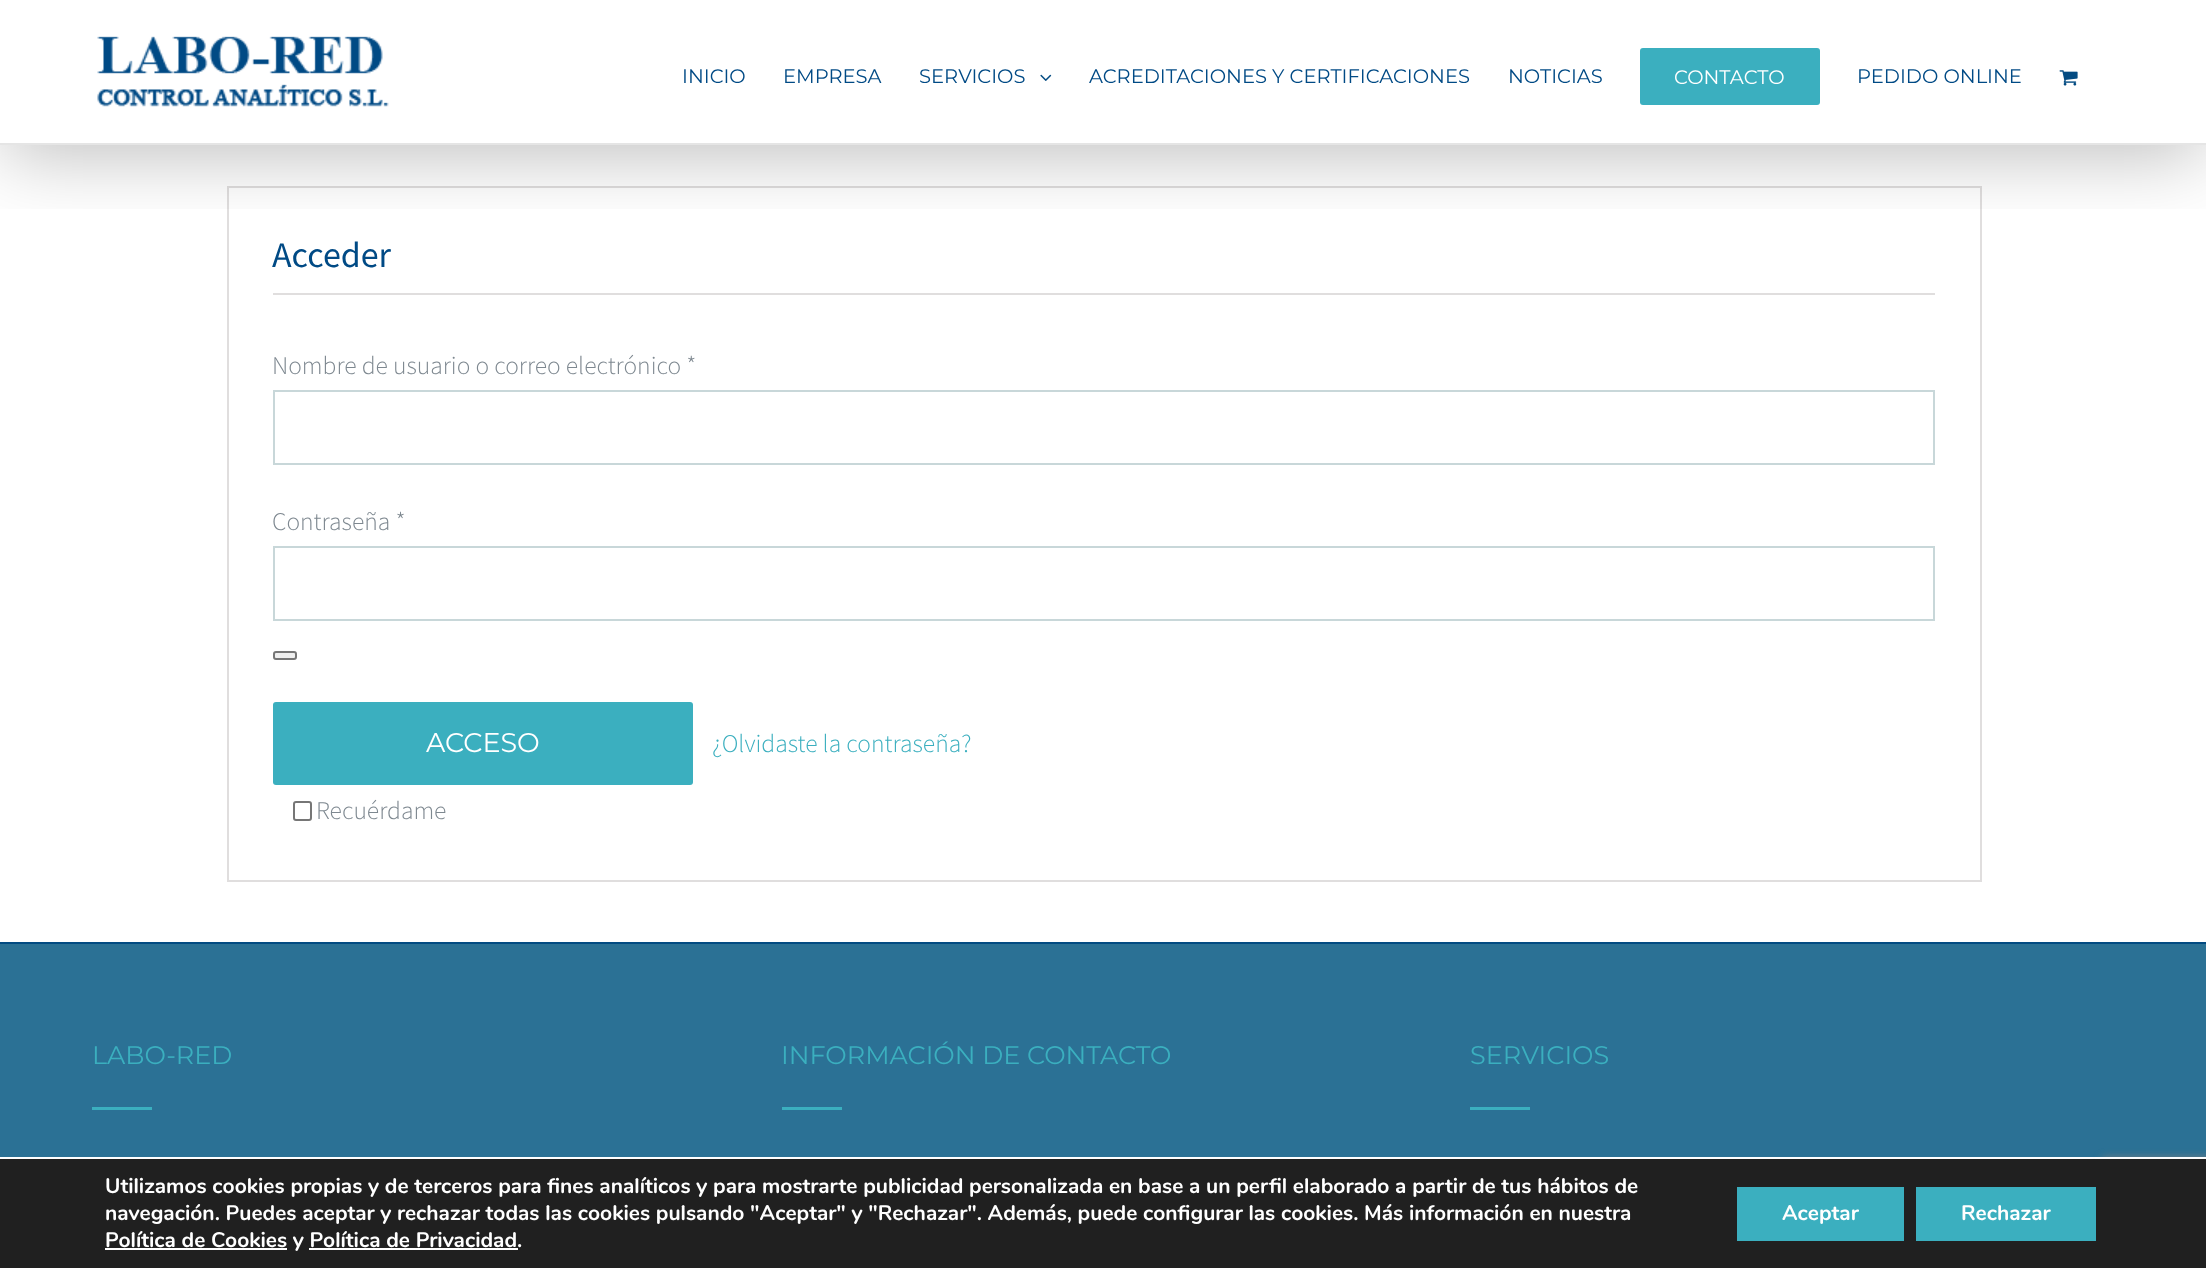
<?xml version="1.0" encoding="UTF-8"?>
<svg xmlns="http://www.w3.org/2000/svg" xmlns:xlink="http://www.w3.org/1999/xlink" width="2206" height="1268">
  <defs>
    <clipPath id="clip1"><rect x="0" y="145" width="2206" height="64" /></clipPath>
  </defs>
  <rect width="100%" height="100%" fill="#ffffff" />
  <rect x="228" y="187" width="1753" height="694" fill="none" stroke="#e0dede" stroke-width="2" />
  <g clip-path="url(#clip1)">
    <rect x="3" y="-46" width="2201" height="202" fill="#000000" fill-opacity="0.25" filter="blur(37.5px)" />
  </g>
  <rect y="143" width="2206" height="2" fill="#e5e5e5" />
  <image x="97" y="36" width="292" height="71" xlink:href="image1.png" />
  <image x="1040" y="74" width="12" height="7" xlink:href="image2.png" />
  <rect x="1640" y="48" width="180" height="57" rx="3" fill="#3bafbf" />
  <image x="2059" y="70" width="19" height="16" xlink:href="image3.png" />
  <rect x="273" y="293" width="1662" height="2" fill="#e0dede" />
  <rect x="274" y="391" width="1660" height="73" fill="none" stroke="#c8d7d9" stroke-width="2" />
  <rect x="274" y="547" width="1660" height="73" fill="none" stroke="#c8d7d9" stroke-width="2" />
  <rect x="274" y="652" width="22" height="7" rx="2" fill="#efefef" stroke="#767676" stroke-width="2" />
  <rect x="273" y="702" width="420" height="83" rx="3" fill="#3bafbf" />
  <rect x="294" y="802" width="17" height="18" rx="2" fill="none" stroke="#767676" stroke-width="2" />
  <rect y="944" width="2206" height="213" fill="#2b7195" />
  <rect y="942" width="2206" height="2" fill="#034b82" />
  <rect x="92" y="1107" width="60" height="3" fill="#3bafbf" />
  <rect x="782" y="1107" width="60" height="3" fill="#3bafbf" />
  <rect x="1470" y="1107" width="60" height="3" fill="#3bafbf" />
  <rect x="2102" y="1158" width="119" height="90" rx="3" fill="#808080" filter="blur(4px)" />
  <rect y="1159" width="2206" height="109" fill="#202020" />
  <rect x="2095" y="1157" width="111" height="2" fill="#ffffff" />
  <rect x="105" y="1248" width="182" height="2" fill="#ffffff" />
  <rect x="309" y="1248" width="209" height="2" fill="#ffffff" />
  <rect x="1737" y="1187" width="167" height="54" fill="#3bafbf" />
  <rect x="1916" y="1187" width="180" height="54" fill="#3bafbf" />
  <text x="682" y="83" style="font-family: Montserrat; font-size: 19.5px; font-weight: 100; fill: #004a85">INICIO</text>
  <text x="783" y="83" style="font-family: Montserrat; font-size: 19.5px; font-weight: 100; fill: #004a85">EMPRESA</text>
  <text x="919" y="83" style="font-family: Montserrat; font-size: 19.5px; font-weight: 100; fill: #004a85">SERVICIOS</text>
  <text x="1089" y="83" style="font-family: Montserrat; font-size: 19.5px; font-weight: 100; fill: #004a85">ACREDITACIONES Y CERTIFICACIONES</text>
  <text x="1508" y="83" style="font-family: Montserrat; font-size: 19.5px; font-weight: 100; fill: #004a85">NOTICIAS</text>
  <text x="1674" y="84" style="font-family: Montserrat; font-size: 19.5px; font-weight: 100; fill: #ffffff">CONTACTO</text>
  <text x="1857" y="83" style="font-family: Montserrat; font-size: 19.5px; font-weight: 100; fill: #004a85">PEDIDO ONLINE</text>
  <text x="272" y="267" style="font-family: Source Sans Pro; font-size: 36px; fill: #004a85">Acceder</text>
  <text x="272" y="374" style="font-family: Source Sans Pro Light; font-size: 25.5px; font-weight: 300; fill: #7e8890">Nombre de usuario o correo electrónico *</text>
  <text x="272" y="530" style="font-family: Source Sans Pro Light; font-size: 25.5px; font-weight: 300; fill: #7e8890">Contraseña *</text>
  <text x="426" y="752" style="font-family: Montserrat; font-size: 27px; font-weight: 100; fill: #ffffff">ACCESO</text>
  <text x="316" y="819" style="font-family: Source Sans Pro Light; font-size: 25.5px; font-weight: 300; fill: #7e8890">Recuérdame</text>
  <text x="712" y="752" style="font-family: Source Sans Pro Light; font-size: 25.5px; font-weight: 300; fill: #3bafbf">¿Olvidaste la contraseña?</text>
  <text x="92" y="1064" style="font-family: Montserrat; font-size: 25.5px; font-weight: 100; fill: #3bafbf">LABO-RED</text>
  <text x="781" y="1064" style="font-family: Montserrat; font-size: 25.5px; font-weight: 100; fill: #3bafbf">INFORMACIÓN DE CONTACTO</text>
  <text x="1470" y="1064" style="font-family: Montserrat; font-size: 25.5px; font-weight: 100; fill: #3bafbf">SERVICIOS</text>
  <text x="105" y="1193" style="font-family: Nunito; font-size: 21px; font-weight: bold; fill: #ffffff">Utilizamos cookies propias y de terceros para fines analíticos y para mostrarte publicidad personalizada en base a un perfil elaborado a partir de tus hábitos de</text>
  <text x="105" y="1220" style="font-family: Nunito; font-size: 21px; font-weight: bold; fill: #ffffff">navegación. Puedes aceptar y rechazar todas las cookies pulsando "Aceptar" y "Rechazar". Además, puede configurar las cookies. Más información en nuestra</text>
  <text x="105" y="1247" style="font-family: Nunito; font-size: 21px; font-weight: bold; fill: #ffffff">Política de Cookies y Política de Privacidad.</text>
  <text x="1782" y="1220" style="font-family: Nunito; font-size: 21px; font-weight: bold; fill: #ffffff">Aceptar</text>
  <text x="1961" y="1220" style="font-family: Nunito; font-size: 21px; font-weight: bold; fill: #ffffff">Rechazar</text>
</svg>
